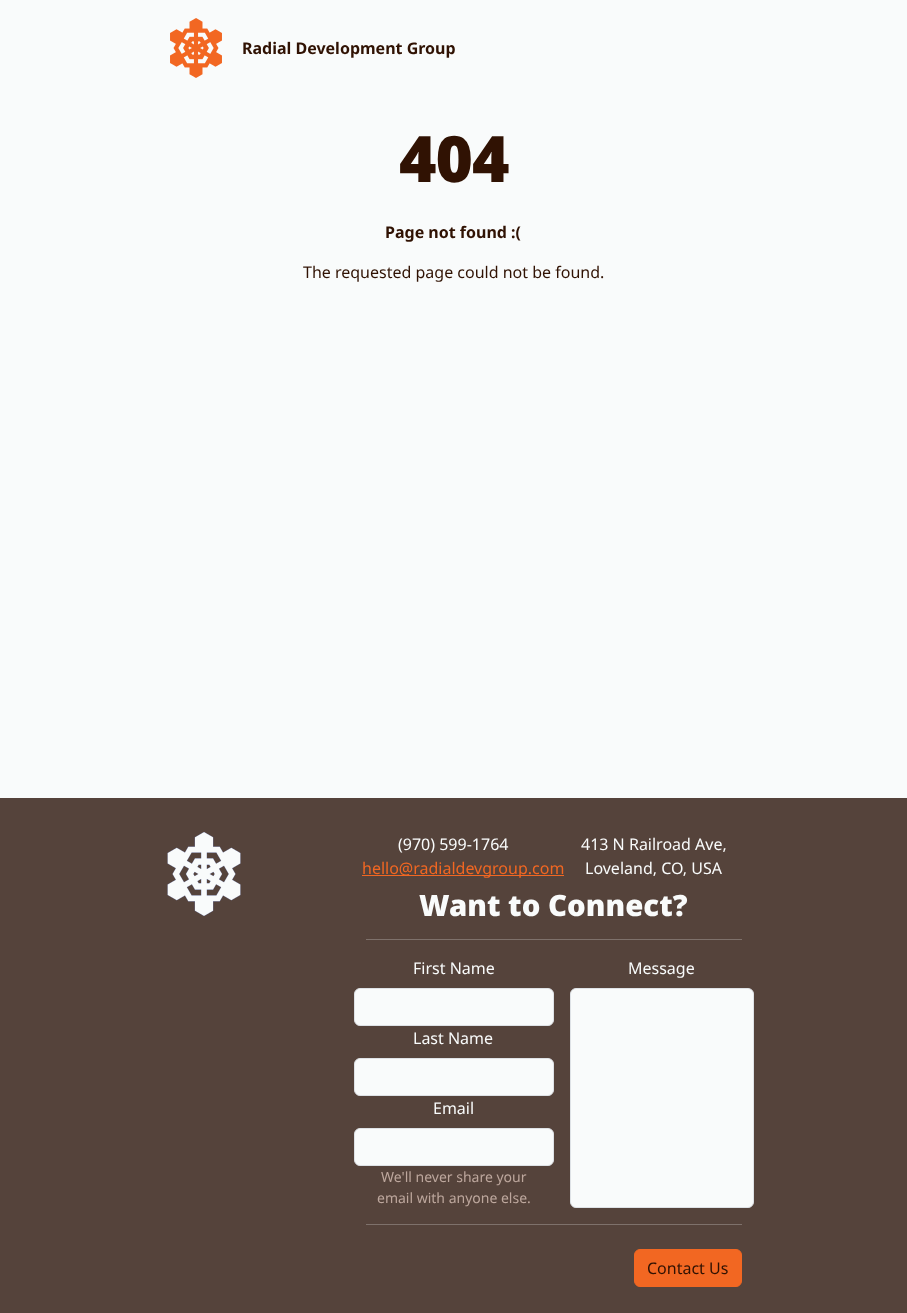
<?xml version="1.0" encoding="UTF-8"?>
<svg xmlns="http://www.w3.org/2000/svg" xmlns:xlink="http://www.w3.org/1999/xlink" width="907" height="1313">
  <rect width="100%" height="100%" fill="#f9fbfb" />
  <image x="170" y="18" width="52" height="60" xlink:href="image1.png" />
  <rect y="798" width="907" height="515" fill="#55433b" />
  <image x="167" y="832" width="74" height="84" xlink:href="image2.png" />
  <rect x="362" y="875" width="202" height="1" fill="#f26722" />
  <rect x="366" y="939" width="376" height="1" fill="#7e716b" />
  <rect x="354.5" y="988.5" width="199" height="37" rx="5.5" fill="#f9fbfb" stroke="#dee2e6" />
  <rect x="354.5" y="1058.5" width="199" height="37" rx="5.5" fill="#f9fbfb" stroke="#dee2e6" />
  <rect x="354.5" y="1128.5" width="199" height="37" rx="5.5" fill="#f9fbfb" stroke="#dee2e6" />
  <rect x="570.5" y="988.5" width="183" height="219" rx="5.5" fill="#f9fbfb" stroke="#dee2e6" />
  <rect x="366" y="1224" width="376" height="1" fill="#7e716b" />
  <rect x="634.5" y="1249.5" width="107" height="37" rx="5.5" fill="#f26722" stroke="#f26722" />
  <text x="242" y="54" style="font-family: Noto Sans; font-size: 16px; font-weight: bold; fill: #301203">Radial Development Group</text>
  <text x="399" y="182" style="font-family: Noto Sans; font-size: 64px; font-weight: 900; letter-spacing: -1px; fill: #301203">404</text>
  <text x="385" y="238" style="font-family: Noto Sans; font-size: 16px; font-weight: bold; fill: #301203">Page not found :(</text>
  <text x="303" y="278" style="font-family: Noto Sans; font-size: 16px; fill: #301203">The requested page could not be found.</text>
  <text x="398" y="850" style="font-family: Noto Sans; font-size: 16px; fill: #f9fbfb">(970) 599-1764</text>
  <text x="362" y="874" style="font-family: Noto Sans; font-size: 16px; fill: #f26722">hello@radialdevgroup.com</text>
  <text x="581" y="850" style="font-family: Noto Sans; font-size: 16px; fill: #f9fbfb">413 N Railroad Ave,</text>
  <text x="585" y="874" style="font-family: Noto Sans; font-size: 16px; fill: #f9fbfb">Loveland, CO, USA</text>
  <text x="419" y="916" style="font-family: Noto Sans; font-size: 29.4px; font-weight: 900; fill: #f9fbfb">Want to Connect?</text>
  <text x="413" y="974" style="font-family: Noto Sans; font-size: 16px; fill: #f9fbfb">First Name</text>
  <text x="413" y="1044" style="font-family: Noto Sans; font-size: 16px; fill: #f9fbfb">Last Name</text>
  <text x="433" y="1114" style="font-family: Noto Sans; font-size: 16px; fill: #f9fbfb">Email</text>
  <text x="381" y="1182" style="font-family: Noto Sans; font-size: 14px; fill: #bda79d">We'll never share your</text>
  <text x="377" y="1203" style="font-family: Noto Sans; font-size: 14px; fill: #bda79d">email with anyone else.</text>
  <text x="628" y="974" style="font-family: Noto Sans; font-size: 16px; fill: #f9fbfb">Message</text>
  <text x="647" y="1274" style="font-family: Noto Sans; font-size: 16px; fill: #301203">Contact Us</text>
</svg>
